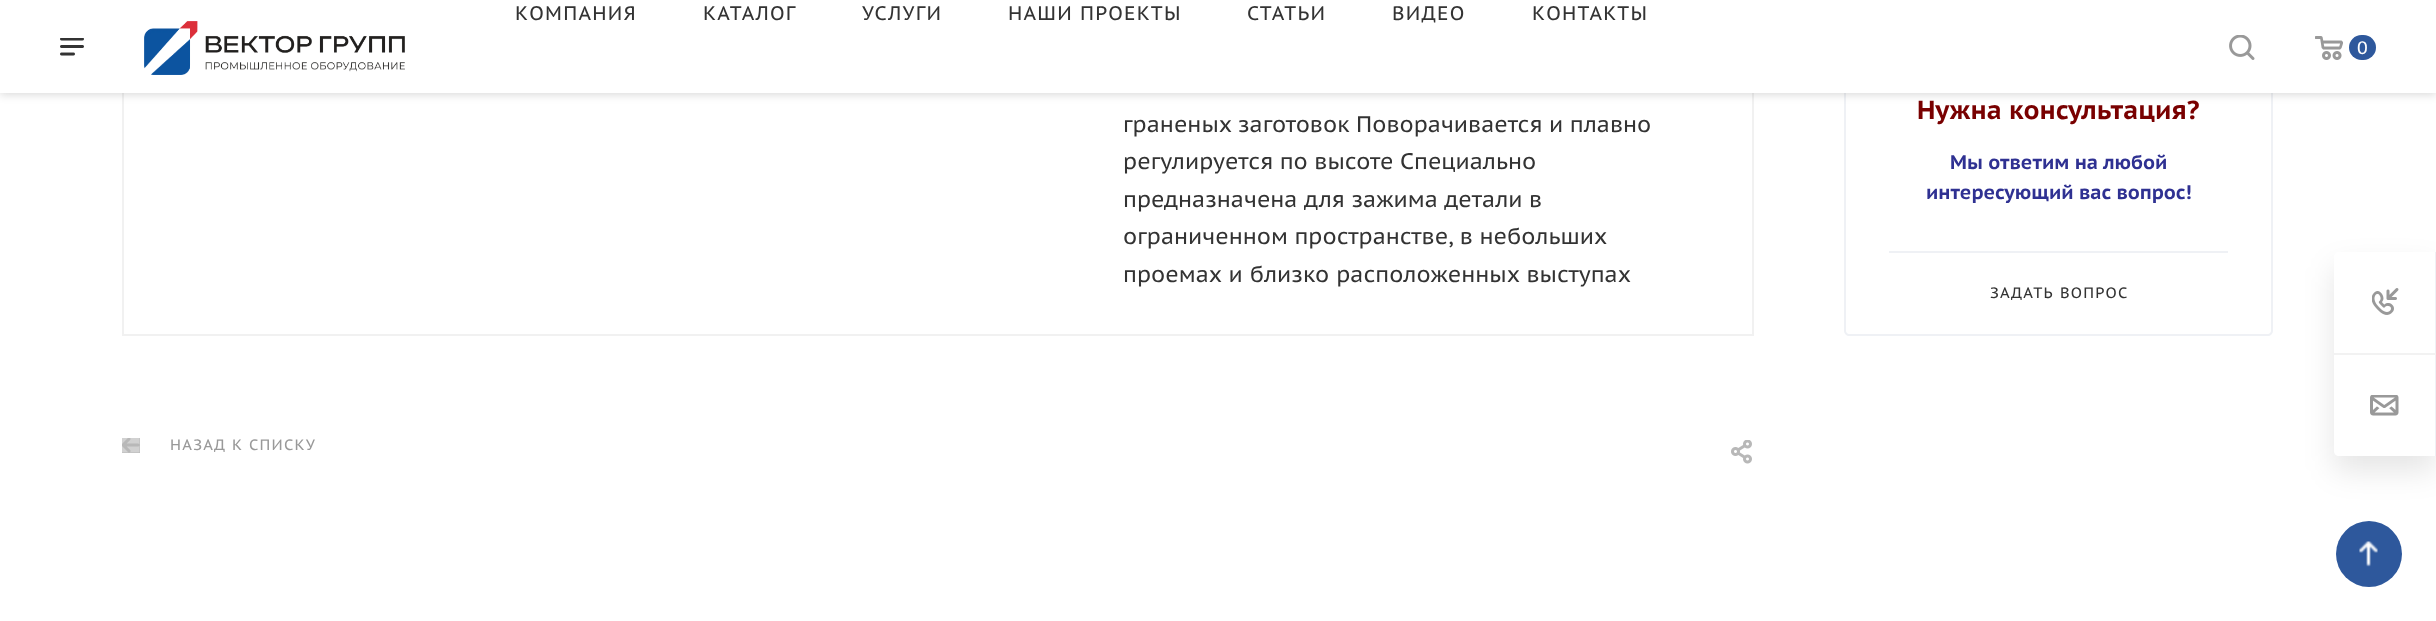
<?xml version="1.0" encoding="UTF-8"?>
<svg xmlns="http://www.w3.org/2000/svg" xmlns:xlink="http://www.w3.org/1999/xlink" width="2436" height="621">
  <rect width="100%" height="100%" fill="#ffffff" />
  <rect x="123" y="-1" width="1630" height="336" fill="none" stroke="#f1f1f1" stroke-width="2" />
  <path d="M 1845 -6 h 427 v 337 c 0 2 -2 4 -4 4 h -419 c -2 0 -4 -2 -4 -4 z" fill="none" stroke="#eff1f5" stroke-width="2" />
  <rect y="2" width="2436" height="93" fill="#000000" fill-opacity="0.14" filter="blur(4px)" />
  <rect width="2436" height="93" fill="#ffffff" />
  <image x="60" y="38" width="24" height="18" xlink:href="image1.png" />
  <image x="144" y="21" width="261" height="54" xlink:href="image2.png" />
  <image x="2229" y="35" width="26" height="25" xlink:href="image3.png" />
  <image x="2315" y="36" width="28" height="24" xlink:href="image4.png" />
  <rect x="2349" y="35" width="27" height="25" rx="12.5" fill="#2e589c" />
  <rect x="1889" y="251" width="339" height="2" fill="#eff1f5" />
  <rect x="122" y="438" width="18" height="15" fill="#b8b8b8" />
  <image x="122" y="438" width="18" height="15" xlink:href="image5.png" />
  <image x="1731" y="440" width="21" height="24" xlink:href="image6.png" />
  <rect x="2334" y="267" width="102" height="204" rx="5" fill="#000000" fill-opacity="0.1" filter="blur(15px)" />
  <path d="M 2339 252 h 97 v 204 h -97 c -3 0 -5 -2 -5 -5 v -194 c 0 -3 2 -5 5 -5 z" fill="#ffffff" />
  <rect x="2435" y="252" width="1" height="204" fill="#eff1f5" />
  <rect x="2334" y="353" width="102" height="2" fill="#f2f2f2" />
  <image x="2372" y="288" width="27" height="27" xlink:href="image7.png" />
  <image x="2370" y="395" width="29" height="21" xlink:href="image8.png" />
  <circle cx="2369" cy="554" r="33" fill="#2e589c" />
  <image x="2359" y="541" width="19" height="26" xlink:href="image9.png" />
  <text x="515" y="20" style="font-family: PT Sans Caption; font-size: 19.5px; letter-spacing: 1.25px; fill: #333333">КОМПАНИЯ</text>
  <text x="703" y="20" style="font-family: PT Sans Caption; font-size: 19.5px; letter-spacing: 1.25px; fill: #333333">КАТАЛОГ</text>
  <text x="862" y="20" style="font-family: PT Sans Caption; font-size: 19.5px; letter-spacing: 1.25px; fill: #333333">УСЛУГИ</text>
  <text x="1008" y="20" style="font-family: PT Sans Caption; font-size: 19.5px; letter-spacing: 1.25px; fill: #333333">НАШИ ПРОЕКТЫ</text>
  <text x="1247" y="20" style="font-family: PT Sans Caption; font-size: 19.5px; letter-spacing: 1.25px; fill: #333333">СТАТЬИ</text>
  <text x="1392" y="20" style="font-family: PT Sans Caption; font-size: 19.5px; letter-spacing: 1.25px; fill: #333333">ВИДЕО</text>
  <text x="1532" y="20" style="font-family: PT Sans Caption; font-size: 19.5px; letter-spacing: 1.25px; fill: #333333">КОНТАКТЫ</text>
  <text x="2357" y="54" style="font-family: PT Sans Caption; font-size: 18px; fill: #ffffff">0</text>
  <text x="1123" y="132" style="font-family: PT Sans Caption; font-size: 22.5px; fill: #333333">граненых заготовок Поворачивается и плавно</text>
  <text x="1123" y="169" style="font-family: PT Sans Caption; font-size: 22.5px; fill: #333333">регулируется по высоте Специально</text>
  <text x="1123" y="207" style="font-family: PT Sans Caption; font-size: 22.5px; fill: #333333">предназначена для зажима детали в</text>
  <text x="1123" y="244" style="font-family: PT Sans Caption; font-size: 22.5px; fill: #333333">ограниченном пространстве, в небольших</text>
  <text x="1123" y="282" word-spacing="0.5" style="font-family: PT Sans Caption; font-size: 22.5px; fill: #333333">проемах и близко расположенных выступах</text>
  <text x="1917" y="119" style="font-family: PT Sans Caption; font-size: 26px; font-weight: bold; fill: #790000">Нужна консультация?</text>
  <text x="1950" y="169" style="font-family: PT Sans Caption; font-size: 19.5px; font-weight: bold; fill: #2f3192">Мы ответим на любой</text>
  <text x="1926" y="199" style="font-family: PT Sans Caption; font-size: 19.5px; font-weight: bold; fill: #2f3192">интересующий вас вопрос!</text>
  <text x="1990" y="298" word-spacing="1" style="font-family: PT Sans Caption; font-size: 15px; letter-spacing: 1.25px; fill: #333333">ЗАДАТЬ ВОПРОС</text>
  <text x="170" y="450" style="font-family: PT Sans Caption; font-size: 15px; letter-spacing: 1.25px; fill: #999999">НАЗАД К СПИСКУ</text>
</svg>
